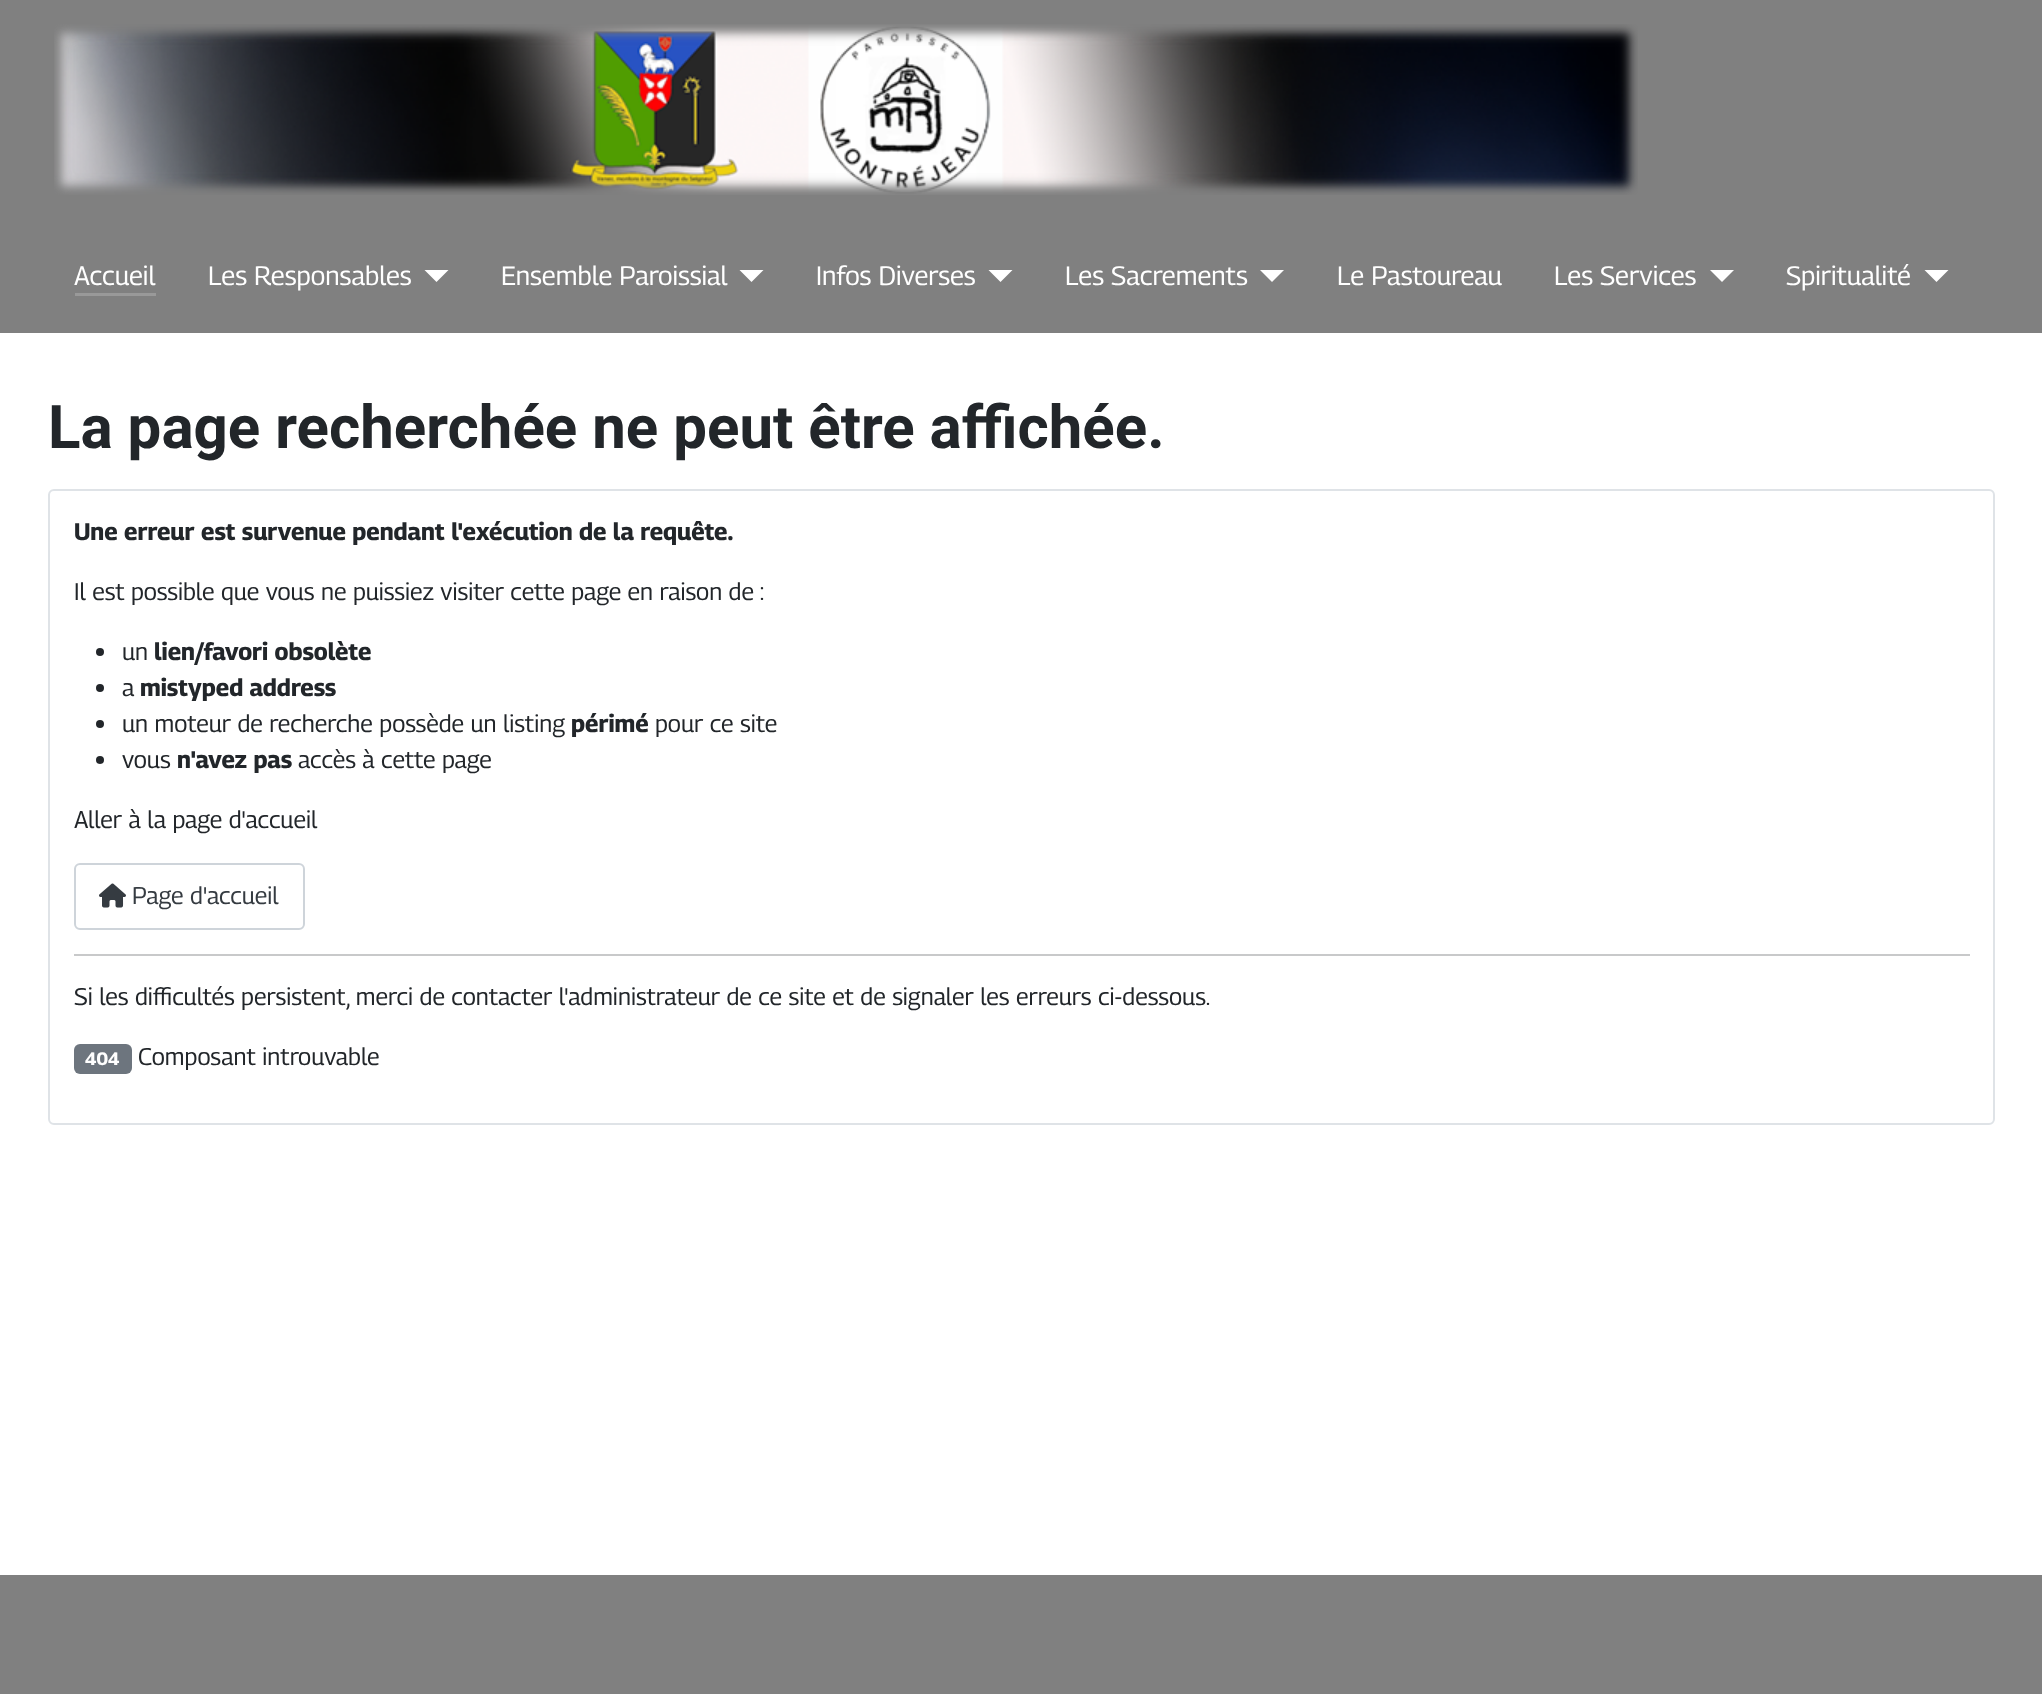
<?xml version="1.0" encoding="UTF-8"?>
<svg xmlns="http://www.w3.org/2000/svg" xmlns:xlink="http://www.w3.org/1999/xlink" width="2042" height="1694">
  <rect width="100%" height="100%" fill="#ffffff" />
  <rect width="2042" height="333" fill="#808080" />
  <image x="54" y="24" width="1584" height="171" xlink:href="image1.png" />
  <rect x="75" y="293" width="81" height="3" fill="#999999" />
  <path d="M 424.5 270 h 24 l -12 12 z" fill="#ffffff" />
  <path d="M 739.5 270 h 24 l -12 12 z" fill="#ffffff" />
  <path d="M 988.5 270 h 24 l -12 12 z" fill="#ffffff" />
  <path d="M 1260 270 h 24 l -12 12 z" fill="#ffffff" />
  <path d="M 1710 270 h 24 l -12 12 z" fill="#ffffff" />
  <path d="M 1924.5 270 h 24 l -12 12 z" fill="#ffffff" />
  <rect x="49" y="490" width="1945" height="634" rx="5" fill="none" stroke="#dfe3e7" stroke-width="2" />
  <circle cx="100" cy="652" r="4" fill="#22262a" />
  <circle cx="100" cy="688" r="4" fill="#22262a" />
  <circle cx="100" cy="724" r="4" fill="#22262a" />
  <circle cx="100" cy="760" r="4" fill="#22262a" />
  <rect x="75" y="864" width="229" height="65" rx="5" fill="none" stroke="#ced4da" stroke-width="2" />
  <image x="99" y="883" width="27" height="25" xlink:href="image2.png" />
  <rect x="74" y="954" width="1896" height="2" fill="#c8c9ca" />
  <rect x="74" y="1044" width="58" height="30" rx="6" fill="#6d757e" />
  <rect y="1575" width="2042" height="119" fill="#808080" />
  <text x="74" y="285" style="font-family: Georama; font-size: 26.5px; fill: #ffffff">Accueil</text>
  <text x="208" y="285" style="font-family: Georama; font-size: 26.5px; fill: #ffffff">Les Responsables</text>
  <text x="501" y="285" style="font-family: Georama; font-size: 26.5px; fill: #ffffff">Ensemble Paroissial</text>
  <text x="816" y="285" style="font-family: Georama; font-size: 26.5px; fill: #ffffff">Infos Diverses</text>
  <text x="1065" y="285" style="font-family: Georama; font-size: 26.5px; fill: #ffffff">Les Sacrements</text>
  <text x="1337" y="285" style="font-family: Georama; font-size: 26.5px; fill: #ffffff">Le Pastoureau</text>
  <text x="1554" y="285" style="font-family: Georama; font-size: 26.5px; fill: #ffffff">Les Services</text>
  <text x="1786" y="285" style="font-family: Georama; font-size: 26.5px; fill: #ffffff">Spiritualité</text>
  <text x="48" y="448" style="font-family: Roboto; font-size: 60px; font-weight: bold; fill: #22262a">La page recherchée ne peut être affichée.</text>
  <text x="74" y="540" style="font-family: Georama; font-size: 24px; font-weight: bold; fill: #22262a">Une erreur est survenue pendant l'exécution de la requête.</text>
  <text x="74" y="600" style="font-family: Georama; font-size: 24px; fill: #22262a">Il est possible que vous ne puissiez visiter cette page en raison de :</text>
  <text x="122" y="660" style="font-family: Georama; font-size: 24px; fill: #22262a">un</text>
  <text x="154" y="660" style="font-family: Georama; font-size: 24px; font-weight: bold; fill: #22262a">lien/favori obsolète</text>
  <text x="122" y="696" style="font-family: Georama; font-size: 24px; fill: #22262a">a</text>
  <text x="140" y="696" style="font-family: Georama; font-size: 24px; font-weight: bold; fill: #22262a">mistyped address</text>
  <text x="122" y="732" style="font-family: Georama; font-size: 24px; fill: #22262a">un moteur de recherche possède un listing</text>
  <text x="571" y="732" style="font-family: Georama; font-size: 24px; font-weight: bold; fill: #22262a">périmé</text>
  <text x="655" y="732" style="font-family: Georama; font-size: 24px; fill: #22262a">pour ce site</text>
  <text x="122" y="768" style="font-family: Georama; font-size: 24px; fill: #22262a">vous</text>
  <text x="177" y="768" style="font-family: Georama; font-size: 24px; font-weight: bold; fill: #22262a">n'avez pas</text>
  <text x="298" y="768" style="font-family: Georama; font-size: 24px; fill: #22262a">accès à cette page</text>
  <text x="74" y="828" style="font-family: Georama; font-size: 24px; fill: #22262a">Aller à la page d'accueil</text>
  <text x="132" y="904" style="font-family: Georama; font-size: 24px; fill: #353b41">Page d'accueil</text>
  <text x="74" y="1005" style="font-family: Georama; font-size: 24px; fill: #22262a">Si les difficultés persistent, merci de contacter l'administrateur de ce site et de signaler les erreurs ci-dessous.</text>
  <text x="85" y="1065" style="font-family: Georama; font-size: 18px; font-weight: bold; fill: #ffffff">404</text>
  <text x="138" y="1065" style="font-family: Georama; font-size: 24px; fill: #22262a">Composant introuvable</text>
</svg>
